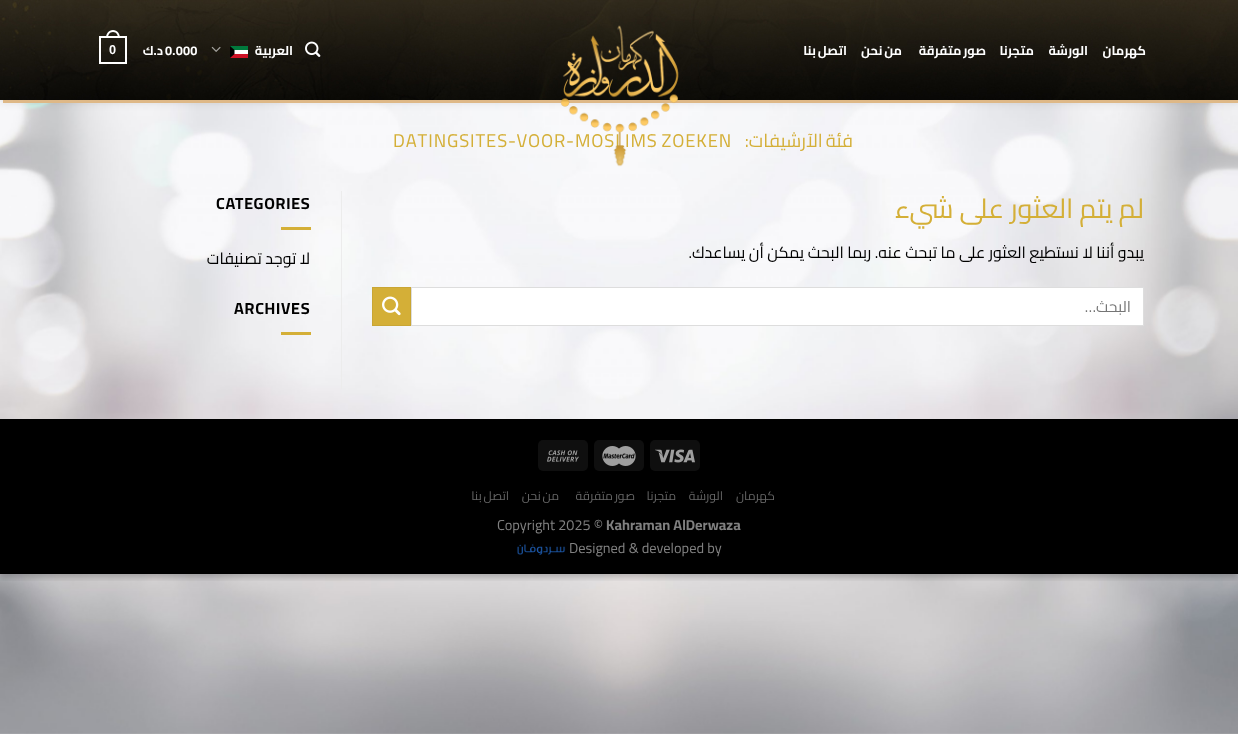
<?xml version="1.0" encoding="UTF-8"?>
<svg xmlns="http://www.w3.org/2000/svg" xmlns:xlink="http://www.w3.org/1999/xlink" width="1238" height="734">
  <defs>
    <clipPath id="clip1"><rect x="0" y="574" width="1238" height="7" /></clipPath>
  </defs>
  <rect width="100%" height="100%" fill="#ffffff" />
  <image x="0" y="100" width="1238" height="634" xlink:href="image1.png" />
  <g clip-path="url(#clip1)">
    <rect y="3" width="1238" height="574" fill="#000000" fill-opacity="0.23" filter="blur(3px)" />
  </g>
  <rect x="1" y="1" width="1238" height="100" fill="#000000" fill-opacity="0.15" filter="blur(5px)" />
  <image x="0" y="0" width="1238" height="100" xlink:href="image2.png" />
  <path d="M 3 100 v 3 h 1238 v -100 h -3 v 97 z" fill="#deb887" />
  <image x="305" y="41" width="16" height="16" xlink:href="image4.png" />
  <image x="230" y="46" width="18" height="12" xlink:href="image5.png" />
  <image x="211" y="46" width="10" height="6" xlink:href="image6.png" />
  <rect x="100" y="37" width="26" height="26" fill="none" stroke="#ffffff" stroke-width="2" />
  <path d="M 113 30 c 4.5 0 7 4 7 8 h -14 c 0 -4 2.5 -8 7 -8 z m 0 2 c 3.5 0 5 3 5 6 h -10 c 0 -3 1.5 -6 5 -6 z" fill="#ffffff" fill-rule="evenodd" />
  <rect x="411.5" y="287.5" width="732" height="38" fill="#ffffff" stroke="#dddddd" />
  <rect x="372.5" y="287.5" width="38" height="38" fill="#d4af37" stroke="#c9a634" />
  <image x="382" y="296" width="19" height="20" xlink:href="image7.png" />
  <rect x="341" y="191" width="1" height="198" fill="#ececec" />
  <rect x="281" y="227" width="30" height="3" fill="#d4af37" />
  <rect x="281" y="332" width="30" height="3" fill="#d4af37" />
  <rect y="419" width="1238" height="155" fill="#000000" />
  <rect x="650" y="440" width="50" height="31" rx="5" fill="#0f0f0f" />
  <image x="655" y="449" width="40" height="14" xlink:href="image8.png" />
  <rect x="594" y="440" width="50" height="31" rx="5" fill="#0f0f0f" />
  <image x="602" y="446" width="34" height="20" xlink:href="image9.png" />
  <rect x="538" y="440" width="50" height="31" rx="5" fill="#0f0f0f" />
  <image x="547" y="450" width="32" height="12" xlink:href="image10.png" />
  <image x="517" y="544" width="49" height="11" xlink:href="image11.png" />
  <text x="1146" y="55" style="font-family: Cairo; font-size: 12.75px; font-weight: bold; letter-spacing: 0.25px; direction: rtl; fill: #ffffff">كهرمان</text>
  <text x="1088" y="55" style="font-family: Cairo; font-size: 12.75px; font-weight: bold; letter-spacing: 0.25px; direction: rtl; fill: #ffffff">الورشة</text>
  <text x="1034" y="55" style="font-family: Cairo; font-size: 12.75px; font-weight: bold; letter-spacing: 0.25px; direction: rtl; fill: #ffffff">متجرنا</text>
  <text x="986" y="55" word-spacing="-1" style="font-family: Cairo; font-size: 12.75px; font-weight: bold; letter-spacing: 0.25px; direction: rtl; fill: #ffffff">صور متفرقة</text>
  <text x="902" y="55" word-spacing="-1" style="font-family: Cairo; font-size: 12.75px; font-weight: bold; letter-spacing: 0.25px; direction: rtl; fill: #ffffff">من نحن</text>
  <text x="847" y="55" word-spacing="-1" style="font-family: Cairo; font-size: 12.75px; font-weight: bold; letter-spacing: 0.25px; direction: rtl; fill: #ffffff">اتصل بنا</text>
  <text x="293" y="55" style="font-family: Cairo; font-size: 12.75px; font-weight: bold; letter-spacing: 0.25px; direction: rtl; fill: #ffffff">العربية</text>
  <text x="165" y="55" style="font-family: Cairo; font-size: 12.75px; font-weight: bold; letter-spacing: 0.25px; fill: #ffffff">0.000</text>
  <text x="163" y="55" style="font-family: Cairo; font-size: 12.75px; font-weight: bold; letter-spacing: 0.25px; direction: rtl; fill: #ffffff">د.ك</text>
  <text x="109" y="54" style="font-family: Liberation Sans; font-size: 12.75px; font-weight: bold; letter-spacing: 0.25px; fill: #ffffff">0</text>
  <text x="853" y="147" word-spacing="-1" style="font-family: Cairo; font-size: 18.4px; letter-spacing: 0.9px; direction: rtl; fill: #d4af37">فئة الآرشيفات:</text>
  <text x="393" y="147" word-spacing="-1" style="font-family: Cairo; font-size: 18.4px; letter-spacing: 0.9px; fill: #d4af37">DATINGSITES-VOOR-MOSLIMS ZOEKEN</text>
  <image x="560" y="25" width="119" height="142" xlink:href="image3.png" />
  <text x="1144" y="218" style="font-family: Cairo; font-size: 27.25px; direction: rtl; fill: #d4af37">لم يتم العثور على شيء</text>
  <text x="1144" y="258" style="font-family: Cairo; font-size: 16px; direction: rtl; fill: #000000">يبدو أننا لا نستطيع العثور على ما تبحث عنه. ربما البحث يمكن أن يساعدك.</text>
  <text x="1131" y="312" style="font-family: Cairo; font-size: 15.5px; direction: rtl; fill: #757575">البحث…</text>
  <text x="216" y="209" style="font-family: Cairo; font-size: 16px; font-weight: bold; letter-spacing: 0.75px; fill: #000000">CATEGORIES</text>
  <text x="310" y="264" style="font-family: Cairo; font-size: 16px; direction: rtl; fill: #000000">لا توجد تصنيفات</text>
  <text x="234" y="314" style="font-family: Cairo; font-size: 16px; font-weight: bold; letter-spacing: 0.75px; fill: #000000">ARCHIVES</text>
  <text x="775" y="500" style="font-family: Cairo; font-size: 12.25px; letter-spacing: 0.6px; direction: rtl; fill: #666666">كهرمان</text>
  <text x="723" y="500" style="font-family: Cairo; font-size: 12.25px; letter-spacing: 0.6px; direction: rtl; fill: #666666">الورشة</text>
  <text x="676" y="500" style="font-family: Cairo; font-size: 12.25px; letter-spacing: 0.6px; direction: rtl; fill: #666666">متجرنا</text>
  <text x="635" y="500" word-spacing="-1" style="font-family: Cairo; font-size: 12.25px; letter-spacing: 0.6px; direction: rtl; fill: #666666">صور متفرقة</text>
  <text x="559" y="500" word-spacing="-1" style="font-family: Cairo; font-size: 12.25px; letter-spacing: 0.6px; direction: rtl; fill: #666666">من نحن</text>
  <text x="509" y="500" word-spacing="-1" style="font-family: Cairo; font-size: 12.25px; letter-spacing: 0.6px; direction: rtl; fill: #666666">اتصل بنا</text>
  <text x="606" y="530" style="font-family: Cairo; font-size: 14.4px; font-weight: bold; fill: #808080">Kahraman AlDerwaza</text>
  <text x="497" y="530" style="font-family: Cairo; font-size: 14.4px; fill: #808080">Copyright 2025 ©</text>
  <text x="569" y="553" style="font-family: Cairo; font-size: 14.4px; fill: #808080">Designed &amp; developed by</text>
</svg>
